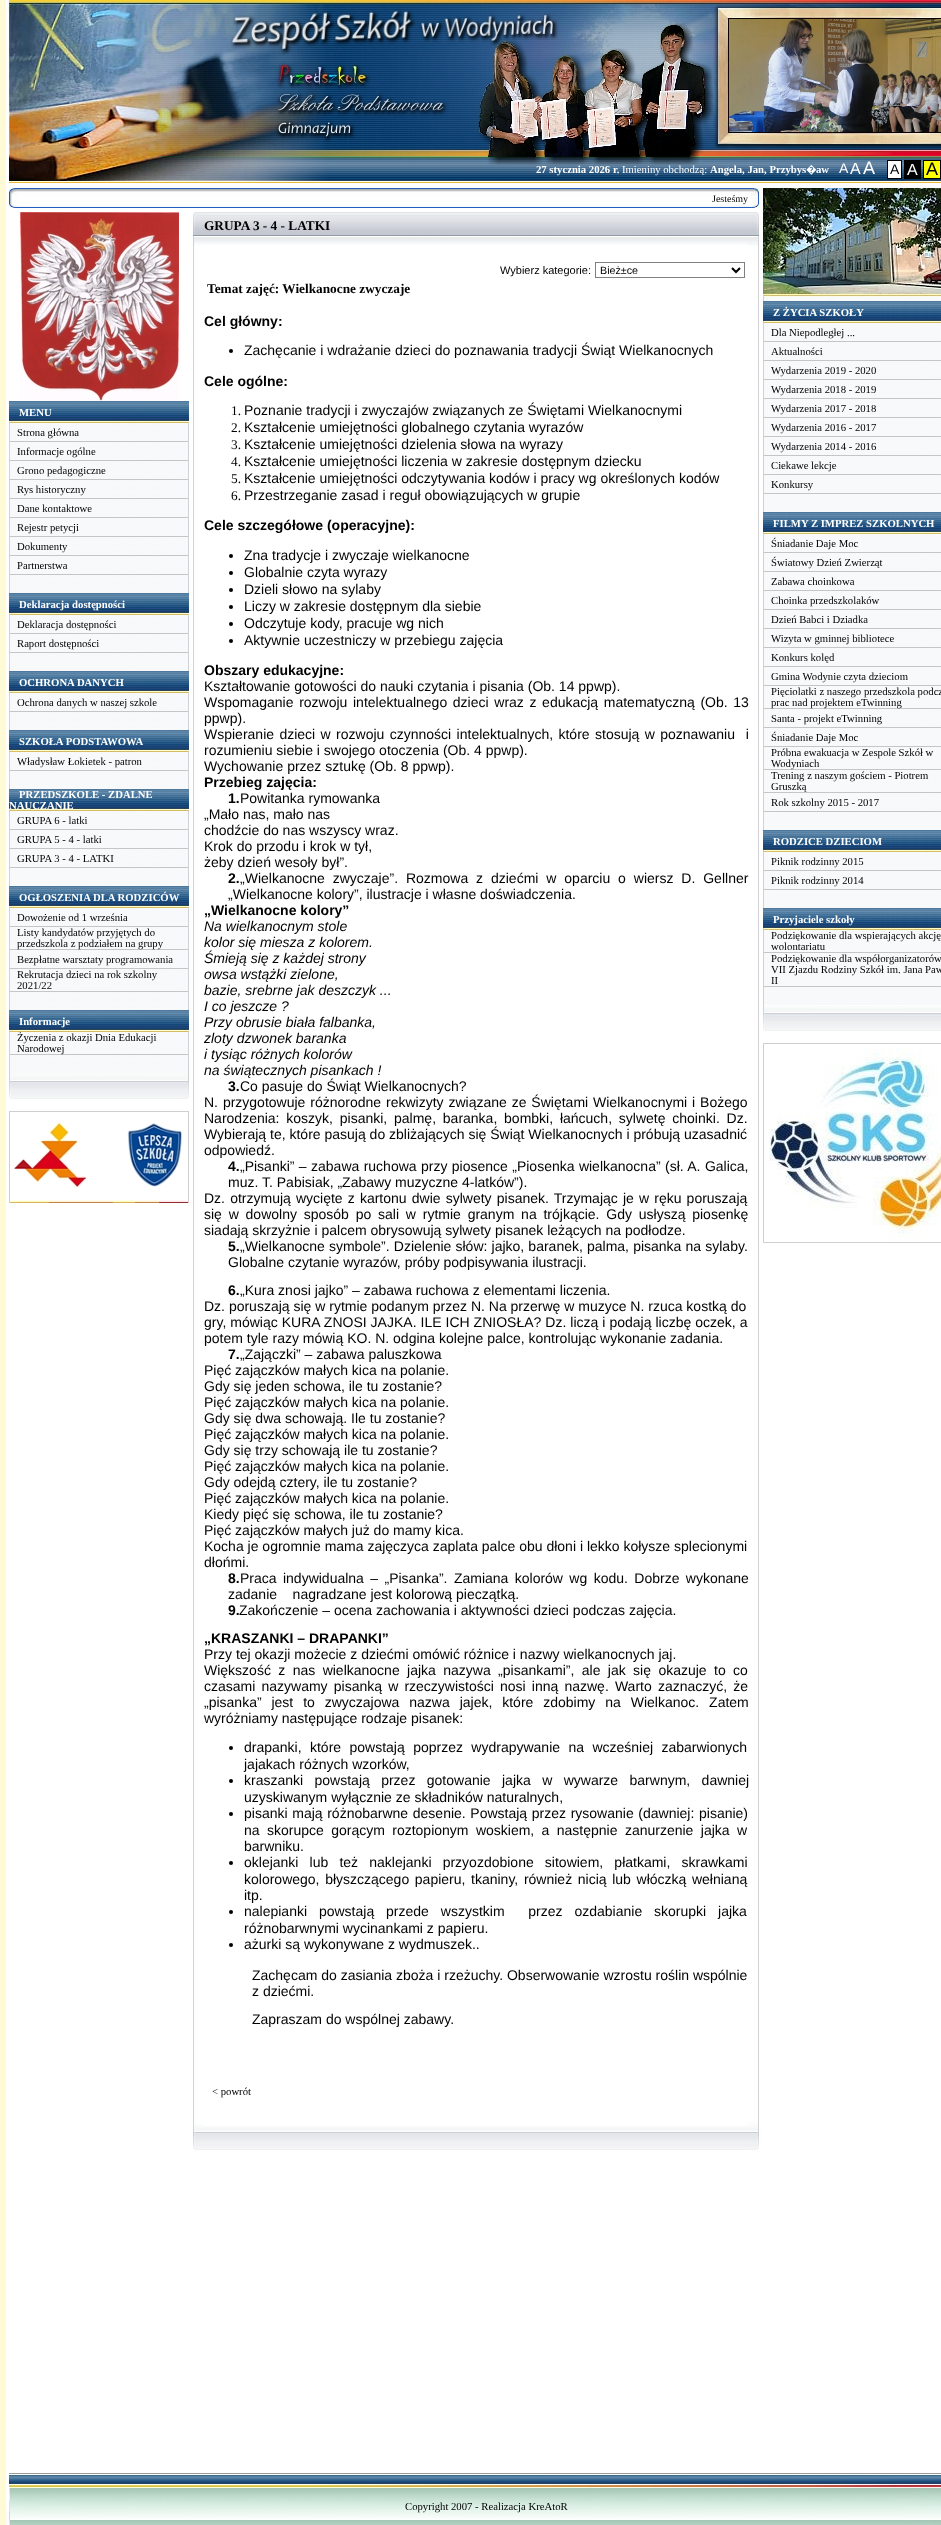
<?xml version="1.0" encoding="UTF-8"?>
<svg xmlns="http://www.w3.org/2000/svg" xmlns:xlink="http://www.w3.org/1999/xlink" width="941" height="2525">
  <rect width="100%" height="100%" fill="#ffffff" />
  <rect width="6" height="2525" fill="#fefad5" />
  <image x="7" y="0" width="2" height="13" xlink:href="image1.png" />
  <rect x="6" y="2511" width="3" height="14" fill="#fcfcfc" />
  <image x="9" y="0" width="932" height="19" xlink:href="image2.png" />
  <image x="9" y="19" width="720" height="113" xlink:href="image3.png" />
  <image x="729" y="19" width="212" height="113" xlink:href="image4.png" />
  <image x="9" y="132" width="932" height="24" xlink:href="image5.png" />
  <image x="9" y="156" width="932" height="27" xlink:href="image6.png" />
  <rect x="887.5" y="160.5" width="14" height="18" fill="#ffffff" stroke="#000000" />
  <rect x="904" y="160" width="17" height="19" fill="#000000" />
  <rect x="923.5" y="160.5" width="17" height="18" fill="#ffff00" stroke="#000000" />
  <image x="20" y="212" width="159" height="189" xlink:href="image7.png" />
  <image x="9" y="401" width="180" height="22" xlink:href="image8.png" />
  <image x="9" y="423" width="180" height="18" xlink:href="image9.png" />
  <image x="9" y="441" width="180" height="1" xlink:href="image10.png" />
  <image x="9" y="442" width="180" height="18" xlink:href="image9.png" />
  <image x="9" y="460" width="180" height="1" xlink:href="image10.png" />
  <image x="9" y="461" width="180" height="18" xlink:href="image9.png" />
  <image x="9" y="479" width="180" height="1" xlink:href="image10.png" />
  <image x="9" y="480" width="180" height="18" xlink:href="image9.png" />
  <image x="9" y="498" width="180" height="1" xlink:href="image10.png" />
  <image x="9" y="499" width="180" height="18" xlink:href="image9.png" />
  <image x="9" y="517" width="180" height="1" xlink:href="image10.png" />
  <image x="9" y="518" width="180" height="18" xlink:href="image9.png" />
  <image x="9" y="536" width="180" height="1" xlink:href="image10.png" />
  <image x="9" y="537" width="180" height="18" xlink:href="image9.png" />
  <image x="9" y="555" width="180" height="1" xlink:href="image10.png" />
  <image x="9" y="556" width="180" height="18" xlink:href="image9.png" />
  <image x="9" y="574" width="180" height="1" xlink:href="image10.png" />
  <image x="9" y="575" width="180" height="18" xlink:href="image9.png" />
  <image x="9" y="593" width="180" height="22" xlink:href="image8.png" />
  <image x="9" y="615" width="180" height="18" xlink:href="image9.png" />
  <image x="9" y="633" width="180" height="1" xlink:href="image10.png" />
  <image x="9" y="634" width="180" height="18" xlink:href="image9.png" />
  <image x="9" y="652" width="180" height="1" xlink:href="image10.png" />
  <image x="9" y="653" width="180" height="18" xlink:href="image9.png" />
  <image x="9" y="671" width="180" height="22" xlink:href="image8.png" />
  <image x="9" y="693" width="180" height="18" xlink:href="image9.png" />
  <image x="9" y="711" width="180" height="1" xlink:href="image10.png" />
  <image x="9" y="712" width="180" height="18" xlink:href="image9.png" />
  <image x="9" y="730" width="180" height="22" xlink:href="image8.png" />
  <image x="9" y="752" width="180" height="18" xlink:href="image9.png" />
  <image x="9" y="770" width="180" height="1" xlink:href="image10.png" />
  <image x="9" y="771" width="180" height="18" xlink:href="image9.png" />
  <image x="9" y="789" width="180" height="22" xlink:href="image8.png" />
  <image x="9" y="811" width="180" height="18" xlink:href="image9.png" />
  <image x="9" y="829" width="180" height="1" xlink:href="image10.png" />
  <image x="9" y="830" width="180" height="18" xlink:href="image9.png" />
  <image x="9" y="848" width="180" height="1" xlink:href="image10.png" />
  <image x="9" y="849" width="180" height="18" xlink:href="image9.png" />
  <image x="9" y="867" width="180" height="1" xlink:href="image10.png" />
  <image x="9" y="868" width="180" height="18" xlink:href="image9.png" />
  <image x="9" y="886" width="180" height="22" xlink:href="image8.png" />
  <image x="9" y="908" width="180" height="18" xlink:href="image9.png" />
  <image x="9" y="926" width="180" height="1" xlink:href="image10.png" />
  <image x="9" y="927" width="180" height="22" xlink:href="image11.png" />
  <image x="9" y="949" width="180" height="1" xlink:href="image10.png" />
  <image x="9" y="950" width="180" height="18" xlink:href="image9.png" />
  <image x="9" y="968" width="180" height="1" xlink:href="image10.png" />
  <image x="9" y="969" width="180" height="22" xlink:href="image11.png" />
  <image x="9" y="991" width="180" height="1" xlink:href="image10.png" />
  <image x="9" y="992" width="180" height="18" xlink:href="image9.png" />
  <image x="9" y="1010" width="180" height="22" xlink:href="image8.png" />
  <image x="9" y="1032" width="180" height="22" xlink:href="image11.png" />
  <image x="9" y="1054" width="180" height="1" xlink:href="image10.png" />
  <image x="9" y="1055" width="180" height="18" xlink:href="image9.png" />
  <image x="9" y="1073" width="180" height="26" xlink:href="image12.png" />
  <image x="9" y="1111" width="180" height="92" xlink:href="image13.png" />
  <image x="190" y="212" width="14" height="35" xlink:href="image14.png" />
  <image x="204" y="212" width="544" height="33" xlink:href="image15.png" />
  <image x="748" y="212" width="12" height="35" xlink:href="image16.png" />
  <rect x="193" y="247" width="1" height="1874" fill="#d1d2d4" />
  <rect x="595.5" y="262.5" width="149" height="15" fill="none" stroke="#808080" />
  <path d="M 732 268 l 4 4 l 4 -4" fill="none" stroke="#000000" stroke-width="2" />
  <circle cx="231" cy="351" r="2" fill="#000000" />
  <circle cx="231" cy="556" r="2" fill="#000000" />
  <circle cx="231" cy="573" r="2" fill="#000000" />
  <circle cx="231" cy="590" r="2" fill="#000000" />
  <circle cx="231" cy="607" r="2" fill="#000000" />
  <circle cx="231" cy="624" r="2" fill="#000000" />
  <circle cx="231" cy="641" r="2" fill="#000000" />
  <circle cx="231" cy="1748" r="2" fill="#000000" />
  <circle cx="231" cy="1781" r="2" fill="#000000" />
  <circle cx="231" cy="1814" r="2" fill="#000000" />
  <circle cx="231" cy="1863" r="2" fill="#000000" />
  <circle cx="231" cy="1912" r="2" fill="#000000" />
  <circle cx="231" cy="1945" r="2" fill="#000000" />
  <rect x="758" y="247" width="1" height="1874" fill="#d3d3d5" />
  <image x="192" y="2121" width="12" height="32" xlink:href="image17.png" />
  <image x="204" y="2126" width="544" height="24" xlink:href="image18.png" />
  <image x="748" y="2121" width="13" height="32" xlink:href="image19.png" />
  <image x="9" y="188" width="8" height="20" xlink:href="image20.png" />
  <image x="17" y="188" width="734" height="20" xlink:href="image21.png" />
  <image x="751" y="188" width="8" height="20" xlink:href="image22.png" />
  <image x="763" y="188" width="178" height="113" xlink:href="image23.png" />
  <image x="763" y="301" width="178" height="22" xlink:href="image24.png" />
  <image x="763" y="323" width="178" height="18" xlink:href="image25.png" />
  <image x="763" y="341" width="178" height="1" xlink:href="image26.png" />
  <image x="763" y="342" width="178" height="18" xlink:href="image25.png" />
  <image x="763" y="360" width="178" height="1" xlink:href="image26.png" />
  <image x="763" y="361" width="178" height="18" xlink:href="image25.png" />
  <image x="763" y="379" width="178" height="1" xlink:href="image26.png" />
  <image x="763" y="380" width="178" height="18" xlink:href="image25.png" />
  <image x="763" y="398" width="178" height="1" xlink:href="image26.png" />
  <image x="763" y="399" width="178" height="18" xlink:href="image25.png" />
  <image x="763" y="417" width="178" height="1" xlink:href="image26.png" />
  <image x="763" y="418" width="178" height="18" xlink:href="image25.png" />
  <image x="763" y="436" width="178" height="1" xlink:href="image26.png" />
  <image x="763" y="437" width="178" height="18" xlink:href="image25.png" />
  <image x="763" y="455" width="178" height="1" xlink:href="image26.png" />
  <image x="763" y="456" width="178" height="18" xlink:href="image25.png" />
  <image x="763" y="474" width="178" height="1" xlink:href="image26.png" />
  <image x="763" y="475" width="178" height="18" xlink:href="image25.png" />
  <image x="763" y="493" width="178" height="1" xlink:href="image26.png" />
  <image x="763" y="494" width="178" height="18" xlink:href="image25.png" />
  <image x="763" y="512" width="178" height="22" xlink:href="image24.png" />
  <image x="763" y="534" width="178" height="18" xlink:href="image25.png" />
  <image x="763" y="552" width="178" height="1" xlink:href="image26.png" />
  <image x="763" y="553" width="178" height="18" xlink:href="image25.png" />
  <image x="763" y="571" width="178" height="1" xlink:href="image26.png" />
  <image x="763" y="572" width="178" height="18" xlink:href="image25.png" />
  <image x="763" y="590" width="178" height="1" xlink:href="image26.png" />
  <image x="763" y="591" width="178" height="18" xlink:href="image25.png" />
  <image x="763" y="609" width="178" height="1" xlink:href="image26.png" />
  <image x="763" y="610" width="178" height="18" xlink:href="image25.png" />
  <image x="763" y="628" width="178" height="1" xlink:href="image26.png" />
  <image x="763" y="629" width="178" height="18" xlink:href="image25.png" />
  <image x="763" y="647" width="178" height="1" xlink:href="image26.png" />
  <image x="763" y="648" width="178" height="18" xlink:href="image25.png" />
  <image x="763" y="666" width="178" height="1" xlink:href="image26.png" />
  <image x="763" y="667" width="178" height="18" xlink:href="image25.png" />
  <image x="763" y="685" width="178" height="1" xlink:href="image26.png" />
  <image x="763" y="686" width="178" height="22" xlink:href="image27.png" />
  <image x="763" y="708" width="178" height="1" xlink:href="image26.png" />
  <image x="763" y="709" width="178" height="18" xlink:href="image25.png" />
  <image x="763" y="727" width="178" height="1" xlink:href="image26.png" />
  <image x="763" y="728" width="178" height="18" xlink:href="image25.png" />
  <image x="763" y="746" width="178" height="1" xlink:href="image26.png" />
  <image x="763" y="747" width="178" height="22" xlink:href="image27.png" />
  <image x="763" y="769" width="178" height="1" xlink:href="image26.png" />
  <image x="763" y="770" width="178" height="22" xlink:href="image27.png" />
  <image x="763" y="792" width="178" height="1" xlink:href="image26.png" />
  <image x="763" y="793" width="178" height="18" xlink:href="image25.png" />
  <image x="763" y="811" width="178" height="1" xlink:href="image26.png" />
  <image x="763" y="812" width="178" height="18" xlink:href="image25.png" />
  <image x="763" y="830" width="178" height="22" xlink:href="image24.png" />
  <image x="763" y="852" width="178" height="18" xlink:href="image25.png" />
  <image x="763" y="870" width="178" height="1" xlink:href="image26.png" />
  <image x="763" y="871" width="178" height="18" xlink:href="image25.png" />
  <image x="763" y="889" width="178" height="1" xlink:href="image26.png" />
  <image x="763" y="890" width="178" height="18" xlink:href="image25.png" />
  <image x="763" y="908" width="178" height="22" xlink:href="image24.png" />
  <image x="763" y="930" width="178" height="22" xlink:href="image27.png" />
  <image x="763" y="952" width="178" height="1" xlink:href="image26.png" />
  <image x="763" y="953" width="178" height="33" xlink:href="image28.png" />
  <image x="763" y="986" width="178" height="1" xlink:href="image26.png" />
  <image x="763" y="987" width="178" height="18" xlink:href="image25.png" />
  <image x="763" y="1005" width="178" height="26" xlink:href="image29.png" />
  <image x="763" y="1043" width="178" height="200" xlink:href="image30.png" />
  <image x="9" y="2473" width="932" height="15" xlink:href="image31.png" />
  <image x="9" y="2488" width="932" height="37" xlink:href="image32.png" />
  <text x="536" y="173" style="font-family: Liberation Serif; font-size: 10.7px; font-weight: bold; fill: #ffffff">27 stycznia 2026 r.</text>
  <text x="622" y="173" style="font-family: Liberation Serif; font-size: 10.7px; fill: #ffffff">Imieniny obchodzą:</text>
  <text x="710" y="173" style="font-family: Liberation Serif; font-size: 10.7px; font-weight: bold; fill: #ffffff">Angela, Jan, Przybys</text>
  <text x="806" y="173" style="font-family: Noto Sans; font-size: 10.7px; font-weight: bold; fill: #ffffff">�</text>
  <text x="816" y="173" style="font-family: Liberation Serif; font-size: 10.7px; font-weight: bold; fill: #ffffff">aw</text>
  <text x="839" y="173" style="font-family: Liberation Sans; font-size: 14px; fill: #ffffff">A</text>
  <text x="850" y="174" style="font-family: Liberation Sans; font-size: 16px; fill: #ffffff">A</text>
  <text x="863" y="174" style="font-family: Liberation Sans; font-size: 18px; fill: #ffffff">A</text>
  <text x="890" y="174" style="font-family: Liberation Sans; font-size: 14px; fill: #000000">A</text>
  <text x="907" y="175" style="font-family: Liberation Sans; font-size: 16px; fill: #ffffff">A</text>
  <text x="926" y="175" style="font-family: Liberation Sans; font-size: 18px; fill: #000000">A</text>
  <text x="19" y="416" style="font-family: Liberation Serif; font-size: 10.7px; font-weight: bold; fill: #ffffff">MENU</text>
  <text x="17" y="436" style="font-family: Liberation Serif; font-size: 10.7px; fill: #000000">Strona główna</text>
  <text x="17" y="455" style="font-family: Liberation Serif; font-size: 10.7px; fill: #000000">Informacje ogólne</text>
  <text x="17" y="474" style="font-family: Liberation Serif; font-size: 10.7px; fill: #000000">Grono pedagogiczne</text>
  <text x="17" y="493" style="font-family: Liberation Serif; font-size: 10.7px; fill: #000000">Rys historyczny</text>
  <text x="17" y="512" style="font-family: Liberation Serif; font-size: 10.7px; fill: #000000">Dane kontaktowe</text>
  <text x="17" y="531" style="font-family: Liberation Serif; font-size: 10.7px; fill: #000000">Rejestr petycji</text>
  <text x="17" y="550" style="font-family: Liberation Serif; font-size: 10.7px; fill: #000000">Dokumenty</text>
  <text x="17" y="569" style="font-family: Liberation Serif; font-size: 10.7px; fill: #000000">Partnerstwa</text>
  <text x="19" y="608" style="font-family: Liberation Serif; font-size: 10.7px; font-weight: bold; fill: #ffffff">Deklaracja dostępności</text>
  <text x="17" y="628" style="font-family: Liberation Serif; font-size: 10.7px; fill: #000000">Deklaracja dostępności</text>
  <text x="17" y="647" style="font-family: Liberation Serif; font-size: 10.7px; fill: #000000">Raport dostępności</text>
  <text x="19" y="686" style="font-family: Liberation Serif; font-size: 10.7px; font-weight: bold; fill: #ffffff">OCHRONA DANYCH</text>
  <text x="17" y="706" style="font-family: Liberation Serif; font-size: 10.7px; fill: #000000">Ochrona danych w naszej szkole</text>
  <text x="19" y="745" style="font-family: Liberation Serif; font-size: 10.7px; font-weight: bold; fill: #ffffff">SZKOŁA PODSTAWOWA</text>
  <text x="17" y="765" style="font-family: Liberation Serif; font-size: 10.7px; fill: #000000">Władysław Łokietek - patron</text>
  <text x="19" y="798" style="font-family: Liberation Serif; font-size: 10.7px; font-weight: bold; fill: #ffffff">PRZEDSZKOLE - ZDALNE</text>
  <text x="9" y="809" style="font-family: Liberation Serif; font-size: 10.7px; font-weight: bold; fill: #ffffff">NAUCZANIE</text>
  <text x="17" y="824" style="font-family: Liberation Serif; font-size: 10.7px; fill: #000000">GRUPA 6 - latki</text>
  <text x="17" y="843" style="font-family: Liberation Serif; font-size: 10.7px; fill: #000000">GRUPA 5 - 4 - latki</text>
  <text x="17" y="862" style="font-family: Liberation Serif; font-size: 10.7px; fill: #000000">GRUPA 3 - 4 - LATKI</text>
  <text x="19" y="901" style="font-family: Liberation Serif; font-size: 10.7px; font-weight: bold; fill: #ffffff">OGŁOSZENIA DLA RODZICÓW</text>
  <text x="17" y="921" style="font-family: Liberation Serif; font-size: 10.7px; fill: #000000">Dowożenie od 1 września</text>
  <text x="17" y="936" style="font-family: Liberation Serif; font-size: 10.7px; fill: #000000">Listy kandydatów przyjętych do</text>
  <text x="17" y="947" style="font-family: Liberation Serif; font-size: 10.7px; fill: #000000">przedszkola z podziałem na grupy</text>
  <text x="17" y="963" style="font-family: Liberation Serif; font-size: 10.7px; fill: #000000">Bezpłatne warsztaty programowania</text>
  <text x="17" y="978" style="font-family: Liberation Serif; font-size: 10.7px; fill: #000000">Rekrutacja dzieci na rok szkolny</text>
  <text x="17" y="989" style="font-family: Liberation Serif; font-size: 10.7px; fill: #000000">2021/22</text>
  <text x="19" y="1025" style="font-family: Liberation Serif; font-size: 10.7px; font-weight: bold; fill: #ffffff">Informacje</text>
  <text x="17" y="1041" style="font-family: Liberation Serif; font-size: 10.7px; fill: #000000">Życzenia z okazji Dnia Edukacji</text>
  <text x="17" y="1052" style="font-family: Liberation Serif; font-size: 10.7px; fill: #000000">Narodowej</text>
  <text x="204" y="230" style="font-family: Liberation Serif; font-size: 13.3px; font-weight: bold; fill: #000000">GRUPA 3 - 4 - LATKI</text>
  <text x="500" y="274" style="font-family: Liberation Sans; font-size: 11px; fill: #000000">Wybierz kategorie:</text>
  <text x="600" y="274" style="font-family: Liberation Sans; font-size: 10.7px; fill: #000000">Bież±ce</text>
  <text x="207" y="293" style="font-family: Liberation Serif; font-size: 13.3px; font-weight: bold; fill: #000000">Temat zajęć: Wielkanocne zwyczaje</text>
  <text x="204" y="326" style="font-family: Liberation Sans; font-size: 14px; font-weight: bold; fill: #000000">Cel główny:</text>
  <text x="244" y="355" style="font-family: Liberation Sans; font-size: 14px; fill: #000000">Zachęcanie i wdrażanie dzieci do poznawania tradycji Świąt Wielkanocnych</text>
  <text x="204" y="386" style="font-family: Liberation Sans; font-size: 14px; font-weight: bold; fill: #000000">Cele ogólne:</text>
  <text x="231" y="415" style="font-family: Liberation Serif; font-size: 13.3px; fill: #000000">1.</text>
  <text x="244" y="415" style="font-family: Liberation Sans; font-size: 14px; fill: #000000">Poznanie tradycji i zwyczajów związanych ze Świętami Wielkanocnymi</text>
  <text x="231" y="432" style="font-family: Liberation Serif; font-size: 13.3px; fill: #000000">2.</text>
  <text x="244" y="432" style="font-family: Liberation Sans; font-size: 14px; fill: #000000">Kształcenie umiejętności globalnego czytania wyrazów</text>
  <text x="231" y="449" style="font-family: Liberation Serif; font-size: 13.3px; fill: #000000">3.</text>
  <text x="244" y="449" style="font-family: Liberation Sans; font-size: 14px; fill: #000000">Kształcenie umiejętności dzielenia słowa na wyrazy</text>
  <text x="231" y="466" style="font-family: Liberation Serif; font-size: 13.3px; fill: #000000">4.</text>
  <text x="244" y="466" style="font-family: Liberation Sans; font-size: 14px; fill: #000000">Kształcenie umiejętności liczenia w zakresie dostępnym dziecku</text>
  <text x="231" y="483" style="font-family: Liberation Serif; font-size: 13.3px; fill: #000000">5.</text>
  <text x="244" y="483" style="font-family: Liberation Sans; font-size: 14px; fill: #000000">Kształcenie umiejętności odczytywania kodów i pracy wg określonych kodów</text>
  <text x="231" y="500" style="font-family: Liberation Serif; font-size: 13.3px; fill: #000000">6.</text>
  <text x="244" y="500" style="font-family: Liberation Sans; font-size: 14px; fill: #000000">Przestrzeganie zasad i reguł obowiązujących w grupie</text>
  <text x="204" y="530" style="font-family: Liberation Sans; font-size: 14px; font-weight: bold; fill: #000000">Cele szczegółowe (operacyjne):</text>
  <text x="244" y="560" style="font-family: Liberation Sans; font-size: 14px; fill: #000000">Zna tradycje i zwyczaje wielkanocne</text>
  <text x="244" y="577" style="font-family: Liberation Sans; font-size: 14px; fill: #000000">Globalnie czyta wyrazy</text>
  <text x="244" y="594" style="font-family: Liberation Sans; font-size: 14px; fill: #000000">Dzieli słowo na sylaby</text>
  <text x="244" y="611" style="font-family: Liberation Sans; font-size: 14px; fill: #000000">Liczy w zakresie dostępnym dla siebie</text>
  <text x="244" y="628" style="font-family: Liberation Sans; font-size: 14px; fill: #000000">Odczytuje kody, pracuje wg nich</text>
  <text x="244" y="645" style="font-family: Liberation Sans; font-size: 14px; fill: #000000">Aktywnie uczestniczy w przebiegu zajęcia</text>
  <text x="204" y="675" style="font-family: Liberation Sans; font-size: 14px; font-weight: bold; fill: #000000">Obszary edukacyjne:</text>
  <text x="204" y="691" style="font-family: Liberation Sans; font-size: 14px; fill: #000000">Kształtowanie gotowości do nauki czytania i pisania (Ob. 14 ppwp).</text>
  <text x="204" y="707" word-spacing="1.75" style="font-family: Liberation Sans; font-size: 14px; fill: #000000">Wspomaganie rozwoju intelektualnego dzieci wraz z edukacją matematyczną (Ob. 13</text>
  <text x="204" y="723" style="font-family: Liberation Sans; font-size: 14px; fill: #000000">ppwp).</text>
  <text x="204" y="739" word-spacing="1.5" style="font-family: Liberation Sans; font-size: 14px; fill: #000000" xml:space="preserve">Wspieranie dzieci w rozwoju czynności intelektualnych, które stosują w poznawaniu  i</text>
  <text x="204" y="755" style="font-family: Liberation Sans; font-size: 14px; fill: #000000">rozumieniu siebie i swojego otoczenia (Ob. 4 ppwp).</text>
  <text x="204" y="771" style="font-family: Liberation Sans; font-size: 14px; fill: #000000">Wychowanie przez sztukę (Ob. 8 ppwp).</text>
  <text x="204" y="787" style="font-family: Liberation Sans; font-size: 14px; font-weight: bold; fill: #000000">Przebieg zajęcia:</text>
  <text x="228" y="803" style="font-family: Liberation Sans; font-size: 14px; font-weight: bold; fill: #000000">1.</text>
  <text x="240" y="803" style="font-family: Liberation Sans; font-size: 14px; fill: #000000">Powitanka rymowanka</text>
  <text x="204" y="819" style="font-family: Liberation Sans; font-size: 14px; fill: #000000">„Mało nas, mało nas</text>
  <text x="204" y="835" style="font-family: Liberation Sans; font-size: 14px; fill: #000000">chodźcie do nas wszyscy wraz.</text>
  <text x="204" y="851" style="font-family: Liberation Sans; font-size: 14px; fill: #000000">Krok do przodu i krok w tył,</text>
  <text x="204" y="867" style="font-family: Liberation Sans; font-size: 14px; fill: #000000">żeby dzień wesoły był”.</text>
  <text x="228" y="883" style="font-family: Liberation Sans; font-size: 14px; font-weight: bold; fill: #000000">2.</text>
  <text x="240" y="883" word-spacing="4" style="font-family: Liberation Sans; font-size: 14px; fill: #000000">„Wielkanocne zwyczaje”. Rozmowa z dziećmi w oparciu o wiersz D. Gellner</text>
  <text x="228" y="899" style="font-family: Liberation Sans; font-size: 14px; fill: #000000">„Wielkanocne kolory”, ilustracje i własne doświadczenia.</text>
  <text x="204" y="915" style="font-family: Liberation Sans; font-size: 14px; font-weight: bold; fill: #000000">„Wielkanocne kolory”</text>
  <text x="204" y="931" style="font-family: Liberation Sans; font-size: 14px; font-style: italic; fill: #000000">Na wielkanocnym stole</text>
  <text x="204" y="947" style="font-family: Liberation Sans; font-size: 14px; font-style: italic; fill: #000000">kolor się miesza z kolorem.</text>
  <text x="204" y="963" style="font-family: Liberation Sans; font-size: 14px; font-style: italic; fill: #000000">Śmieją się z każdej strony</text>
  <text x="204" y="979" style="font-family: Liberation Sans; font-size: 14px; font-style: italic; fill: #000000">owsa wstążki zielone,</text>
  <text x="204" y="995" style="font-family: Liberation Sans; font-size: 14px; font-style: italic; fill: #000000">bazie, srebrne jak deszczyk ...</text>
  <text x="204" y="1011" style="font-family: Liberation Sans; font-size: 14px; font-style: italic; fill: #000000">I co jeszcze ?</text>
  <text x="204" y="1027" style="font-family: Liberation Sans; font-size: 14px; font-style: italic; fill: #000000">Przy obrusie biała falbanka,</text>
  <text x="204" y="1043" style="font-family: Liberation Sans; font-size: 14px; font-style: italic; fill: #000000">zloty dzwonek baranka</text>
  <text x="204" y="1059" style="font-family: Liberation Sans; font-size: 14px; font-style: italic; fill: #000000">i tysiąc różnych kolorów</text>
  <text x="204" y="1075" style="font-family: Liberation Sans; font-size: 14px; font-style: italic; fill: #000000">na świątecznych pisankach !</text>
  <text x="228" y="1091" style="font-family: Liberation Sans; font-size: 14px; font-weight: bold; fill: #000000">3.</text>
  <text x="240" y="1091" style="font-family: Liberation Sans; font-size: 14px; fill: #000000">Co pasuje do Świąt Wielkanocnych?</text>
  <text x="204" y="1107" word-spacing="1" style="font-family: Liberation Sans; font-size: 14px; fill: #000000">N. przygotowuje różnorodne rekwizyty związane ze Świętami Wielkanocnymi i Bożego</text>
  <text x="204" y="1123" word-spacing="2.9" style="font-family: Liberation Sans; font-size: 14px; fill: #000000">Narodzenia: koszyk, pisanki, palmę, baranka, bombki, łańcuch, sylwetę choinki. Dz.</text>
  <text x="204" y="1139" style="font-family: Liberation Sans; font-size: 14px; fill: #000000">Wybierają te, które pasują do zbliżających się Świąt Wielkanocnych i próbują uzasadnić</text>
  <text x="204" y="1155" style="font-family: Liberation Sans; font-size: 14px; fill: #000000">odpowiedź.</text>
  <text x="228" y="1171" style="font-family: Liberation Sans; font-size: 14px; font-weight: bold; fill: #000000">4.</text>
  <text x="240" y="1171" word-spacing="0.5" style="font-family: Liberation Sans; font-size: 14px; fill: #000000">„Pisanki” – zabawa ruchowa przy piosence „Piosenka wielkanocna” (sł. A. Galica,</text>
  <text x="228" y="1187" style="font-family: Liberation Sans; font-size: 14px; fill: #000000">muz. T. Pabisiak, „Zabawy muzyczne 4-latków”).</text>
  <text x="204" y="1203" word-spacing="1.25" style="font-family: Liberation Sans; font-size: 14px; fill: #000000">Dz. otrzymują wycięte z kartonu dwie sylwety pisanek. Trzymając je w ręku poruszają</text>
  <text x="204" y="1219" word-spacing="2.9" style="font-family: Liberation Sans; font-size: 14px; fill: #000000">się w dowolny sposób po sali w rytmie granym na trójkącie. Gdy usłyszą piosenkę</text>
  <text x="204" y="1235" style="font-family: Liberation Sans; font-size: 14px; fill: #000000">siadają skrzyżnie i palcem obrysowują sylwety pisanek leżących na podłodze.</text>
  <text x="228" y="1251" style="font-family: Liberation Sans; font-size: 14px; font-weight: bold; fill: #000000">5.</text>
  <text x="240" y="1251" word-spacing="0.25" style="font-family: Liberation Sans; font-size: 14px; fill: #000000">„Wielkanocne symbole”. Dzielenie słów: jajko, baranek, palma, pisanka na sylaby.</text>
  <text x="228" y="1267" style="font-family: Liberation Sans; font-size: 14px; fill: #000000">Globalne czytanie wyrazów, próby podpisywania ilustracji.</text>
  <text x="228" y="1295" style="font-family: Liberation Sans; font-size: 14px; font-weight: bold; fill: #000000">6.</text>
  <text x="240" y="1295" style="font-family: Liberation Sans; font-size: 14px; fill: #000000">„Kura znosi jajko” – zabawa ruchowa z elementami liczenia.</text>
  <text x="204" y="1311" style="font-family: Liberation Sans; font-size: 14px; fill: #000000">Dz. poruszają się w rytmie podanym przez N. Na przerwę w muzyce N. rzuca kostką do</text>
  <text x="204" y="1327" word-spacing="0.1" style="font-family: Liberation Sans; font-size: 14px; fill: #000000">gry, mówiąc KURA ZNOSI JAJKA. ILE ICH ZNIOSŁA? Dz. liczą i podają liczbę oczek, a</text>
  <text x="204" y="1343" style="font-family: Liberation Sans; font-size: 14px; fill: #000000">potem tyle razy mówią KO. N. odgina kolejne palce, kontrolując wykonanie zadania.</text>
  <text x="228" y="1359" style="font-family: Liberation Sans; font-size: 14px; font-weight: bold; fill: #000000">7.</text>
  <text x="240" y="1359" style="font-family: Liberation Sans; font-size: 14px; fill: #000000">„Zajączki” – zabawa paluszkowa</text>
  <text x="204" y="1375" style="font-family: Liberation Sans; font-size: 14px; fill: #000000">Pięć zajączków małych kica na polanie.</text>
  <text x="204" y="1391" style="font-family: Liberation Sans; font-size: 14px; fill: #000000">Gdy się jeden schowa, ile tu zostanie?</text>
  <text x="204" y="1407" style="font-family: Liberation Sans; font-size: 14px; fill: #000000">Pięć zajączków małych kica na polanie.</text>
  <text x="204" y="1423" style="font-family: Liberation Sans; font-size: 14px; fill: #000000">Gdy się dwa schowają. Ile tu zostanie?</text>
  <text x="204" y="1439" style="font-family: Liberation Sans; font-size: 14px; fill: #000000">Pięć zajączków małych kica na polanie.</text>
  <text x="204" y="1455" style="font-family: Liberation Sans; font-size: 14px; fill: #000000">Gdy się trzy schowają ile tu zostanie?</text>
  <text x="204" y="1471" style="font-family: Liberation Sans; font-size: 14px; fill: #000000">Pięć zajączków małych kica na polanie.</text>
  <text x="204" y="1487" style="font-family: Liberation Sans; font-size: 14px; fill: #000000">Gdy odejdą cztery, ile tu zostanie?</text>
  <text x="204" y="1503" style="font-family: Liberation Sans; font-size: 14px; fill: #000000">Pięć zajączków małych kica na polanie.</text>
  <text x="204" y="1519" style="font-family: Liberation Sans; font-size: 14px; fill: #000000">Kiedy pięć się schowa, ile tu zostanie?</text>
  <text x="204" y="1535" style="font-family: Liberation Sans; font-size: 14px; fill: #000000">Pięć zajączków małych już do mamy kica.</text>
  <text x="204" y="1551" style="font-family: Liberation Sans; font-size: 14px; fill: #000000">Kocha je ogromnie mama zajęczyca zaplata palce obu dłoni i lekko kołysze splecionymi</text>
  <text x="204" y="1567" style="font-family: Liberation Sans; font-size: 14px; fill: #000000">dłońmi.</text>
  <text x="228" y="1583" style="font-family: Liberation Sans; font-size: 14px; font-weight: bold; fill: #000000">8.</text>
  <text x="240" y="1583" word-spacing="2.5" style="font-family: Liberation Sans; font-size: 14px; fill: #000000">Praca indywidualna – „Pisanka”. Zamiana kolorów wg kodu. Dobrze wykonane</text>
  <text x="228" y="1599" style="font-family: Liberation Sans; font-size: 14px; fill: #000000" xml:space="preserve">zadanie    nagradzane jest kolorową pieczątką.</text>
  <text x="228" y="1615" style="font-family: Liberation Sans; font-size: 14px; font-weight: bold; fill: #000000">9.</text>
  <text x="239" y="1615" style="font-family: Liberation Sans; font-size: 14px; fill: #000000">Zakończenie – ocena zachowania i aktywności dzieci podczas zajęcia.</text>
  <text x="204" y="1643" style="font-family: Liberation Sans; font-size: 14px; font-weight: bold; fill: #000000">„KRASZANKI – DRAPANKI”</text>
  <text x="204" y="1659" style="font-family: Liberation Sans; font-size: 14px; fill: #000000">Przy tej okazji możecie z dziećmi omówić różnice i nazwy wielkanocnych jaj.</text>
  <text x="204" y="1675" word-spacing="3.5" style="font-family: Liberation Sans; font-size: 14px; fill: #000000">Większość z nas wielkanocne jajka nazywa „pisankami”, ale jak się okazuje to co</text>
  <text x="204" y="1691" word-spacing="2.25" style="font-family: Liberation Sans; font-size: 14px; fill: #000000">czasami nazywamy pisanką w rzeczywistości nosi inną nazwę. Warto zaznaczyć, że</text>
  <text x="204" y="1707" word-spacing="6" style="font-family: Liberation Sans; font-size: 14px; fill: #000000">„pisanka” jest to zwyczajowa nazwa jajek, które zdobimy na Wielkanoc. Zatem</text>
  <text x="204" y="1723" style="font-family: Liberation Sans; font-size: 14px; fill: #000000">wyróżniamy następujące rodzaje pisanek:</text>
  <text x="244" y="1752" word-spacing="4.5" style="font-family: Liberation Sans; font-size: 14px; fill: #000000">drapanki, które powstają poprzez wydrapywanie na wcześniej zabarwionych</text>
  <text x="244" y="1769" style="font-family: Liberation Sans; font-size: 14px; fill: #000000">jajakach różnych wzorków,</text>
  <text x="244" y="1785" word-spacing="7.5" style="font-family: Liberation Sans; font-size: 14px; fill: #000000">kraszanki powstają przez gotowanie jajka w wywarze barwnym, dawniej</text>
  <text x="244" y="1802" style="font-family: Liberation Sans; font-size: 14px; fill: #000000">uzyskiwanym wyłącznie ze składników naturalnych,</text>
  <text x="244" y="1818" word-spacing="0.75" style="font-family: Liberation Sans; font-size: 14px; fill: #000000">pisanki mają różnobarwne desenie. Powstają przez rysowanie (dawniej: pisanie)</text>
  <text x="244" y="1835" word-spacing="3.5" style="font-family: Liberation Sans; font-size: 14px; fill: #000000">na skorupce gorącym roztopionym woskiem, a następnie zanurzenie jajka w</text>
  <text x="244" y="1851" style="font-family: Liberation Sans; font-size: 14px; fill: #000000">barwniku.</text>
  <text x="244" y="1867" word-spacing="7.25" style="font-family: Liberation Sans; font-size: 14px; fill: #000000">oklejanki lub też naklejanki przyozdobione sitowiem, płatkami, skrawkami</text>
  <text x="244" y="1884" word-spacing="1.75" style="font-family: Liberation Sans; font-size: 14px; fill: #000000">kolorowego, błyszczącego papieru, tkaniny, również nicią lub włóczką wełnianą</text>
  <text x="244" y="1900" style="font-family: Liberation Sans; font-size: 14px; fill: #000000">itp.</text>
  <text x="244" y="1916" word-spacing="8" style="font-family: Liberation Sans; font-size: 14px; fill: #000000" xml:space="preserve">nalepianki powstają przede wszystkim  przez ozdabianie skorupki jajka</text>
  <text x="244" y="1933" style="font-family: Liberation Sans; font-size: 14px; fill: #000000">różnobarwnymi wycinankami z papieru.</text>
  <text x="244" y="1949" style="font-family: Liberation Sans; font-size: 14px; fill: #000000">ażurki są wykonywane z wydmuszek..</text>
  <text x="252" y="1980" style="font-family: Liberation Sans; font-size: 14px; fill: #000000">Zachęcam do zasiania zboża i rzeżuchy. Obserwowanie wzrostu roślin wspólnie</text>
  <text x="252" y="1996" style="font-family: Liberation Sans; font-size: 14px; fill: #000000">z dziećmi.</text>
  <text x="252" y="2024" style="font-family: Liberation Sans; font-size: 14px; fill: #000000">Zapraszam do wspólnej zabawy.</text>
  <text x="212" y="2095" style="font-family: Liberation Serif; font-size: 10.7px; fill: #000000">&lt; powrót</text>
  <text x="712" y="202" style="font-family: Liberation Serif; font-size: 10px; fill: #000000">Jesteśmy</text>
  <text x="773" y="316" style="font-family: Liberation Serif; font-size: 10.7px; font-weight: bold; fill: #ffffff">Z ŻYCIA SZKOŁY</text>
  <text x="771" y="336" style="font-family: Liberation Serif; font-size: 10.7px; fill: #000000">Dla Niepodległej ...</text>
  <text x="771" y="355" style="font-family: Liberation Serif; font-size: 10.7px; fill: #000000">Aktualności</text>
  <text x="771" y="374" style="font-family: Liberation Serif; font-size: 10.7px; fill: #000000">Wydarzenia 2019 - 2020</text>
  <text x="771" y="393" style="font-family: Liberation Serif; font-size: 10.7px; fill: #000000">Wydarzenia 2018 - 2019</text>
  <text x="771" y="412" style="font-family: Liberation Serif; font-size: 10.7px; fill: #000000">Wydarzenia 2017 - 2018</text>
  <text x="771" y="431" style="font-family: Liberation Serif; font-size: 10.7px; fill: #000000">Wydarzenia 2016 - 2017</text>
  <text x="771" y="450" style="font-family: Liberation Serif; font-size: 10.7px; fill: #000000">Wydarzenia 2014 - 2016</text>
  <text x="771" y="469" style="font-family: Liberation Serif; font-size: 10.7px; fill: #000000">Ciekawe lekcje</text>
  <text x="771" y="488" style="font-family: Liberation Serif; font-size: 10.7px; fill: #000000">Konkursy</text>
  <text x="773" y="527" style="font-family: Liberation Serif; font-size: 10.7px; font-weight: bold; fill: #ffffff">FILMY Z IMPREZ SZKOLNYCH</text>
  <text x="771" y="547" style="font-family: Liberation Serif; font-size: 10.7px; fill: #000000">Śniadanie Daje Moc</text>
  <text x="771" y="566" style="font-family: Liberation Serif; font-size: 10.7px; fill: #000000">Światowy Dzień Zwierząt</text>
  <text x="771" y="585" style="font-family: Liberation Serif; font-size: 10.7px; fill: #000000">Zabawa choinkowa</text>
  <text x="771" y="604" style="font-family: Liberation Serif; font-size: 10.7px; fill: #000000">Choinka przedszkolaków</text>
  <text x="771" y="623" style="font-family: Liberation Serif; font-size: 10.7px; fill: #000000">Dzień Babci i Dziadka</text>
  <text x="771" y="642" style="font-family: Liberation Serif; font-size: 10.7px; fill: #000000">Wizyta w gminnej bibliotece</text>
  <text x="771" y="661" style="font-family: Liberation Serif; font-size: 10.7px; fill: #000000">Konkurs kolęd</text>
  <text x="771" y="680" style="font-family: Liberation Serif; font-size: 10.7px; fill: #000000">Gmina Wodynie czyta dzieciom</text>
  <text x="771" y="695" style="font-family: Liberation Serif; font-size: 10.7px; fill: #000000">Pięciolatki z naszego przedszkola podcz</text>
  <text x="771" y="706" style="font-family: Liberation Serif; font-size: 10.7px; fill: #000000">prac nad projektem eTwinning</text>
  <text x="771" y="722" style="font-family: Liberation Serif; font-size: 10.7px; fill: #000000">Santa - projekt eTwinning</text>
  <text x="771" y="741" style="font-family: Liberation Serif; font-size: 10.7px; fill: #000000">Śniadanie Daje Moc</text>
  <text x="771" y="756" style="font-family: Liberation Serif; font-size: 10.7px; fill: #000000">Próbna ewakuacja w Zespole Szkół w</text>
  <text x="771" y="767" style="font-family: Liberation Serif; font-size: 10.7px; fill: #000000">Wodyniach</text>
  <text x="771" y="779" style="font-family: Liberation Serif; font-size: 10.7px; fill: #000000">Trening z naszym gościem - Piotrem</text>
  <text x="771" y="790" style="font-family: Liberation Serif; font-size: 10.7px; fill: #000000">Gruszką</text>
  <text x="771" y="806" style="font-family: Liberation Serif; font-size: 10.7px; fill: #000000">Rok szkolny 2015 - 2017</text>
  <text x="773" y="845" style="font-family: Liberation Serif; font-size: 10.7px; font-weight: bold; fill: #ffffff">RODZICE DZIECIOM</text>
  <text x="771" y="865" style="font-family: Liberation Serif; font-size: 10.7px; fill: #000000">Piknik rodzinny 2015</text>
  <text x="771" y="884" style="font-family: Liberation Serif; font-size: 10.7px; fill: #000000">Piknik rodzinny 2014</text>
  <text x="773" y="923" style="font-family: Liberation Serif; font-size: 10.7px; font-weight: bold; fill: #ffffff">Przyjaciele szkoły</text>
  <text x="771" y="939" style="font-family: Liberation Serif; font-size: 10.7px; fill: #000000">Podziękowanie dla wspierających akcję</text>
  <text x="771" y="950" style="font-family: Liberation Serif; font-size: 10.7px; fill: #000000">wolontariatu</text>
  <text x="771" y="962" style="font-family: Liberation Serif; font-size: 10.7px; fill: #000000">Podziękowanie dla współorganizatorów</text>
  <text x="771" y="973" style="font-family: Liberation Serif; font-size: 10.7px; fill: #000000">VII Zjazdu Rodziny Szkół im. Jana Paw</text>
  <text x="771" y="984" style="font-family: Liberation Serif; font-size: 10.7px; fill: #000000">II</text>
  <text x="405" y="2510" style="font-family: Liberation Serif; font-size: 10.7px; fill: #000000">Copyright 2007 - Realizacja KreAtoR</text>
</svg>
